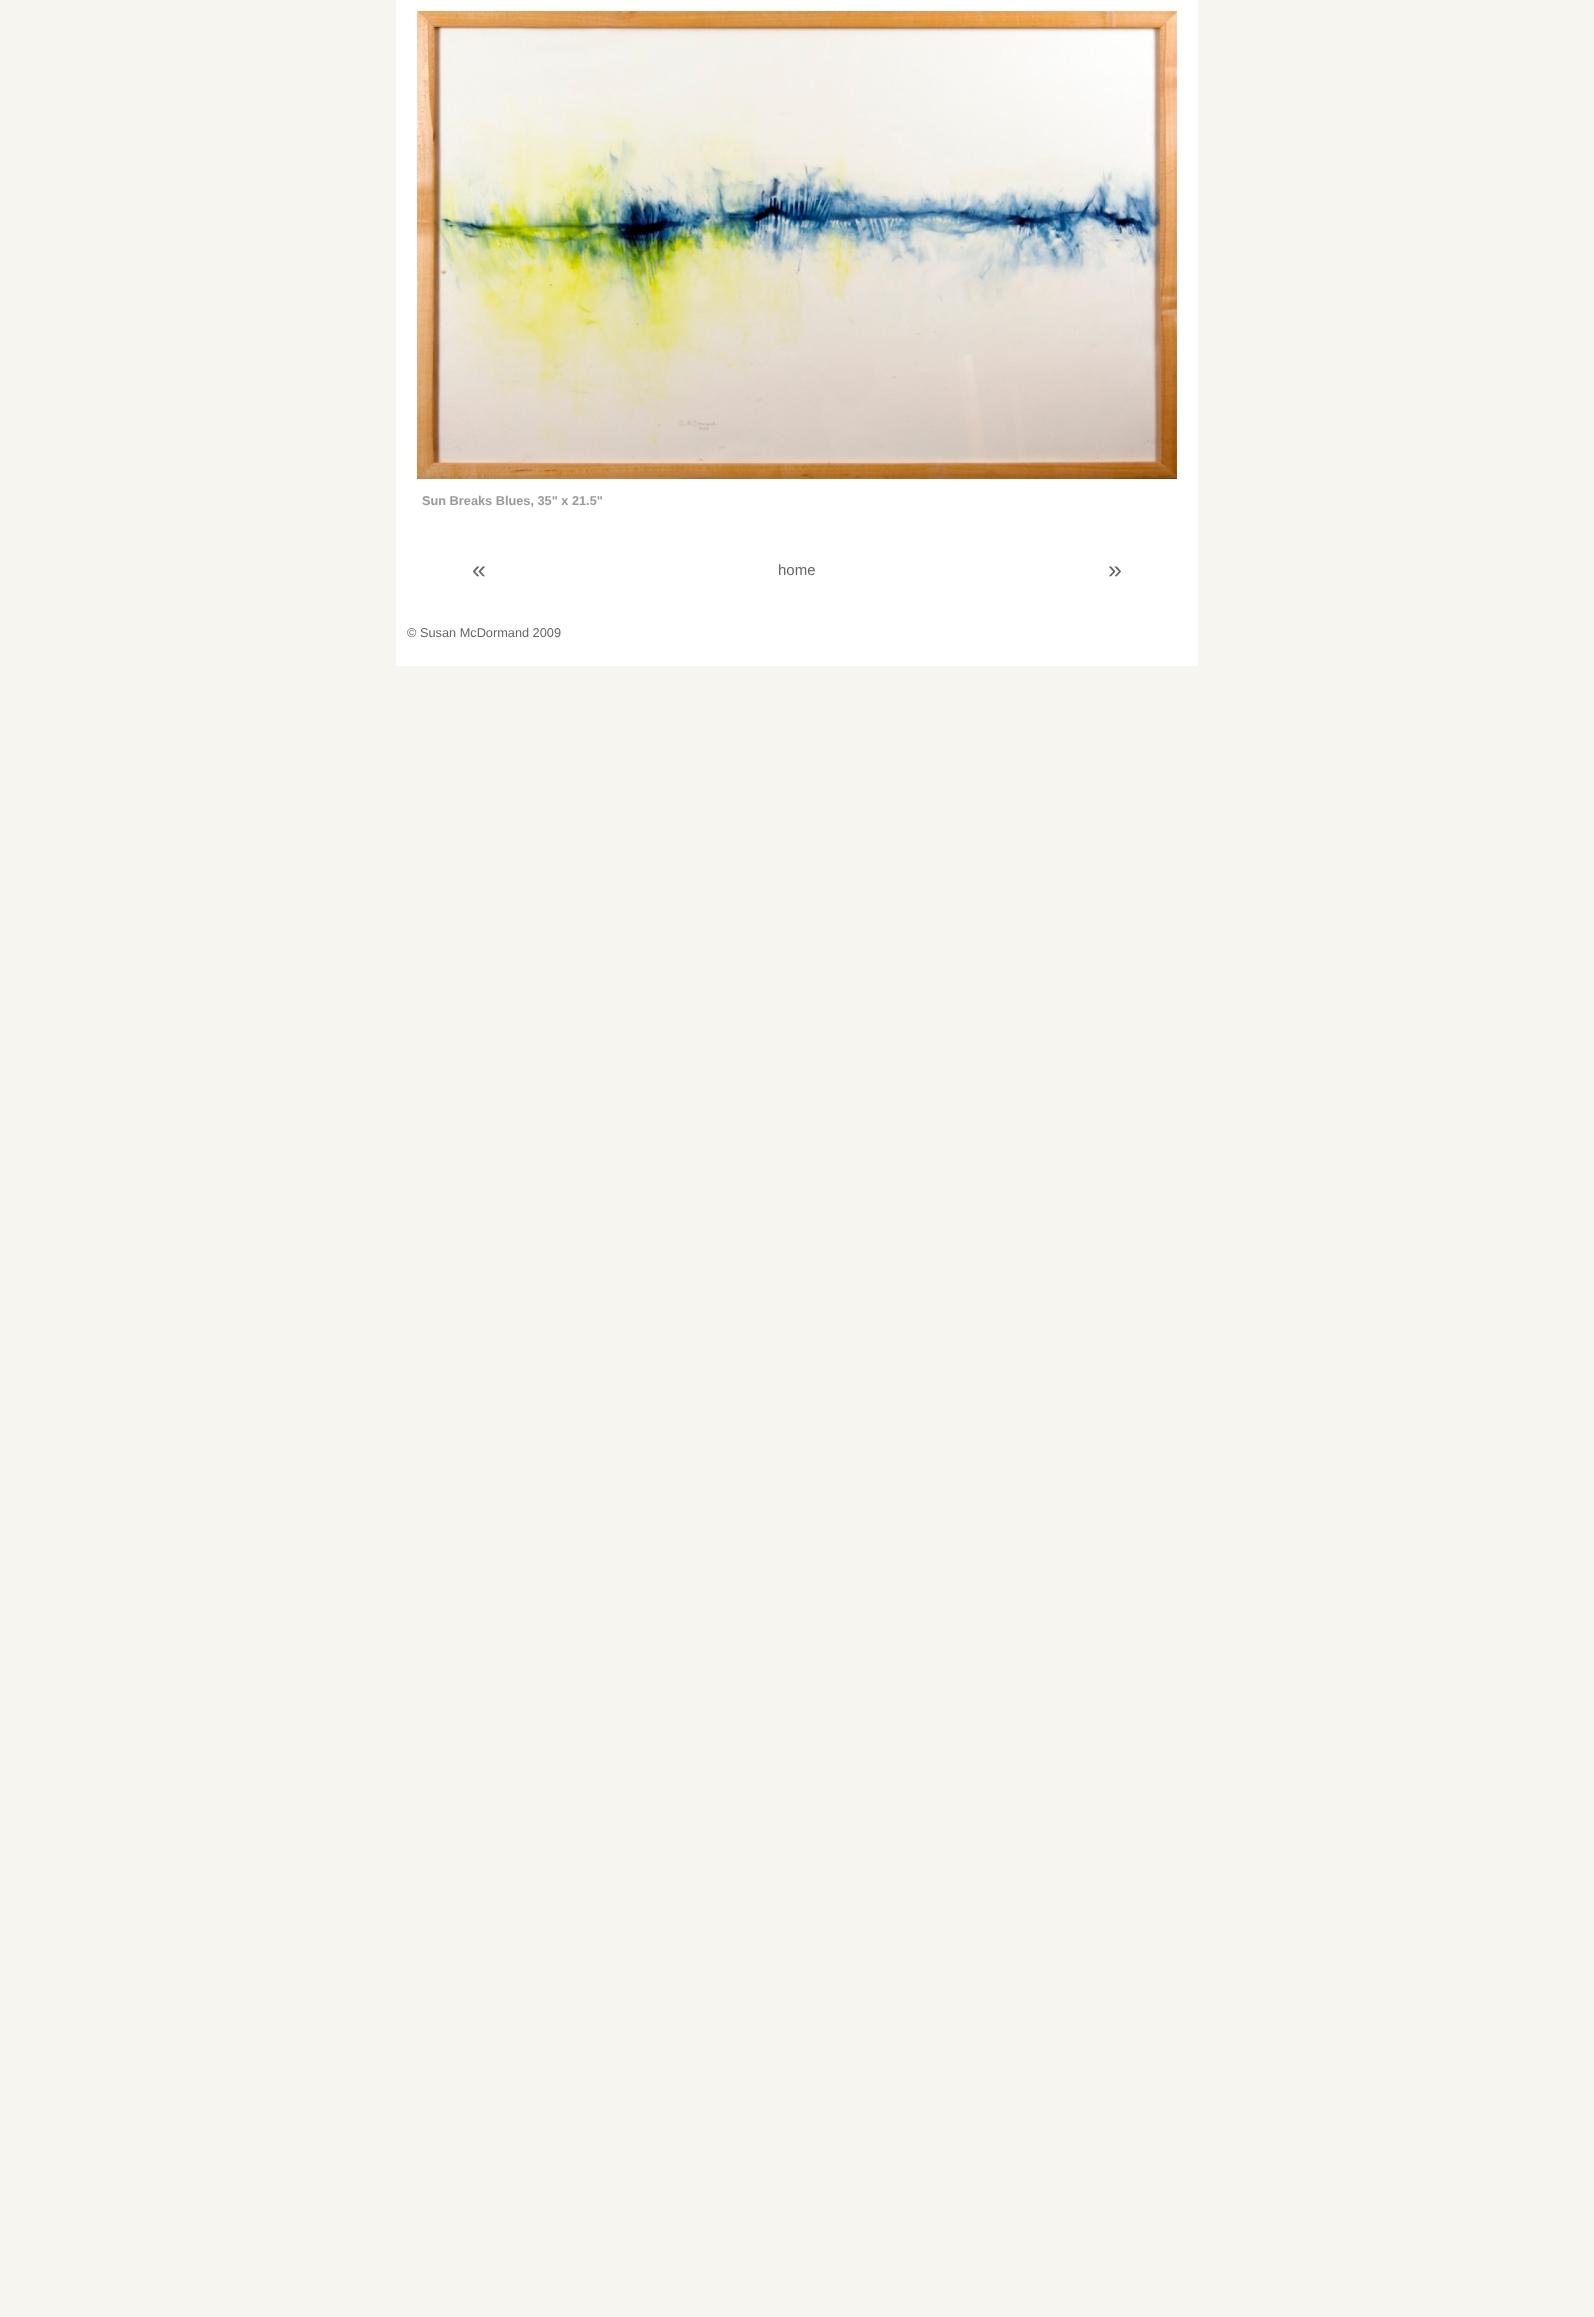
<?xml version="1.0" encoding="UTF-8"?>
<svg xmlns="http://www.w3.org/2000/svg" xmlns:xlink="http://www.w3.org/1999/xlink" width="1594" height="2317">
  <rect width="100%" height="100%" fill="#f6f5f0" />
  <rect x="396" width="802" height="666" fill="#ffffff" />
  <image x="417" y="11" width="760" height="468" xlink:href="image1.png" />
  <text x="422" y="505" style="font-family: Liberation Sans; font-size: 12.75px; font-weight: bold; fill: #999999">Sun Breaks Blues, 35" x 21.5"</text>
  <text x="472" y="578" style="font-family: Liberation Sans; font-size: 25px; fill: #666666">«</text>
  <text x="778" y="575" style="font-family: Liberation Sans; font-size: 15px; fill: #666666">home</text>
  <text x="1108" y="578" style="font-family: Liberation Sans; font-size: 25px; fill: #666666">»</text>
  <text x="407" y="637" style="font-family: Liberation Sans; font-size: 12.75px; fill: #666666">© Susan McDormand 2009</text>
</svg>
